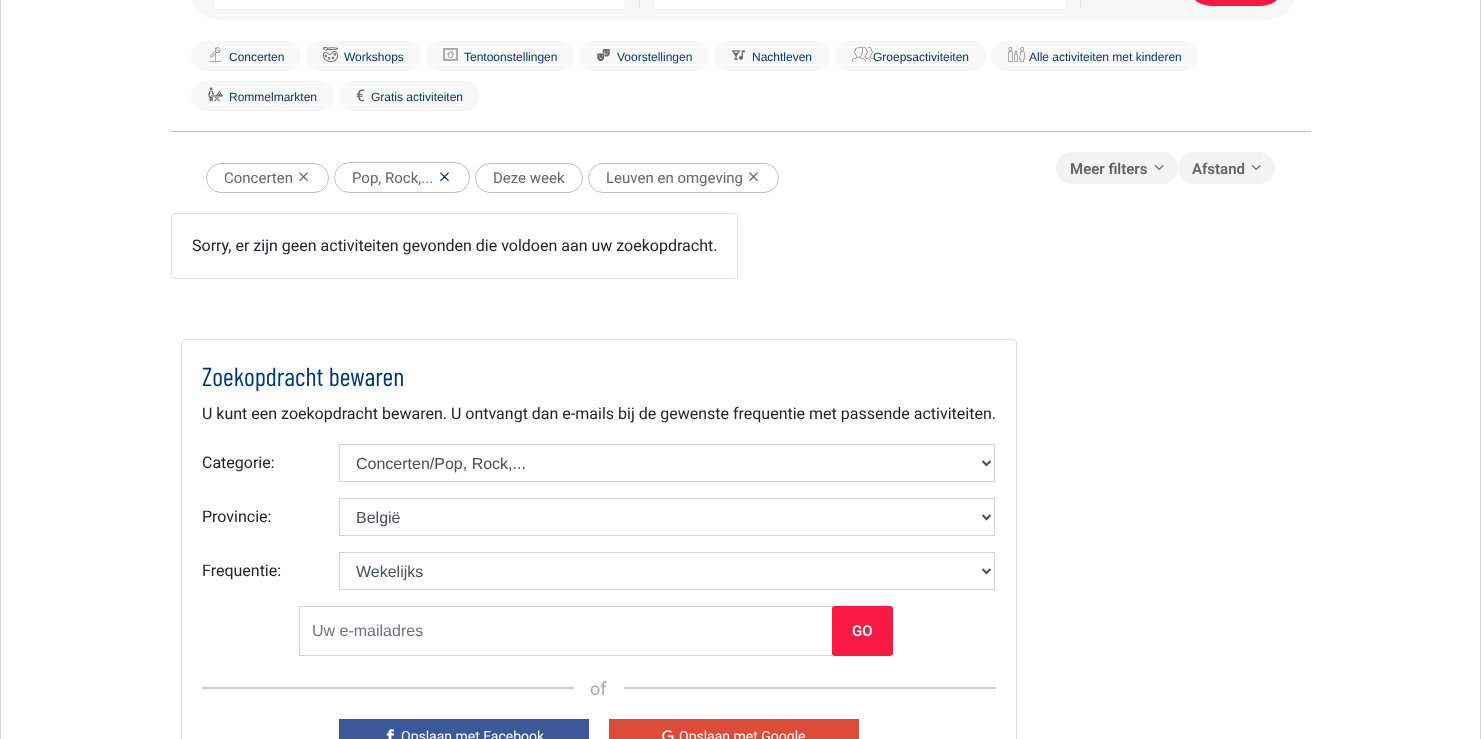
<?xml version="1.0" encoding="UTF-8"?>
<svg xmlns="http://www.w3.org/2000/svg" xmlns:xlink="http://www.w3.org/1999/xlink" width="1481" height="739">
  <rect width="100%" height="100%" fill="#ffffff" />
  <rect x="0.5" y="-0.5" width="1480" height="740" fill="none" stroke="#ced4da" />
  <rect x="171" y="131" width="1140" height="1" fill="#c0c0c0" />
  <rect x="191" y="-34" width="1105" height="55" rx="34" fill="#f7f7f7" />
  <rect x="639" width="1" height="9" fill="#e0e0e0" />
  <rect x="215" width="409" height="9" fill="#ffffff" />
  <rect x="1080" width="1" height="9" fill="#e0e0e0" />
  <rect x="655" width="410" height="9" fill="#ffffff" />
  <rect x="1191" y="-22" width="90" height="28" rx="22" fill="#f91942" />
  <rect x="191" y="41" width="110" height="30" rx="15" fill="#f7f7f7" />
  <image x="209" y="47" width="13" height="15" xlink:href="image1.png" />
  <rect x="306" y="41" width="115" height="30" rx="15" fill="#f7f7f7" />
  <image x="323" y="47" width="15" height="15" xlink:href="image2.png" />
  <rect x="426" y="41" width="148" height="30" rx="15" fill="#f7f7f7" />
  <image x="443" y="48" width="15" height="13" xlink:href="image3.png" />
  <rect x="579" y="41" width="130" height="30" rx="15" fill="#f7f7f7" />
  <image x="597" y="49" width="13" height="12" xlink:href="image4.png" />
  <rect x="714" y="41" width="116" height="30" rx="15" fill="#f7f7f7" />
  <image x="731" y="50" width="14" height="10" xlink:href="image5.png" />
  <rect x="835" y="41" width="151" height="30" rx="15" fill="#f7f7f7" />
  <image x="852" y="46" width="24" height="16" xlink:href="image6.png" />
  <rect x="991" y="41" width="207" height="30" rx="15" fill="#f7f7f7" />
  <image x="1008" y="47" width="18" height="15" xlink:href="image7.png" />
  <rect x="191" y="81" width="143" height="30" rx="15" fill="#f7f7f7" />
  <image x="208" y="87" width="15" height="15" xlink:href="image8.png" />
  <rect x="339" y="81" width="141" height="30" rx="15" fill="#f7f7f7" />
  <rect x="1056" y="152" width="122" height="32" rx="16" fill="#f3f3f3" />
  <image x="1154" y="165" width="10" height="6" xlink:href="image9.png" />
  <rect x="1178" y="152" width="97" height="32" rx="16" fill="#f3f3f3" />
  <image x="1251" y="165" width="10" height="6" xlink:href="image9.png" />
  <rect x="206.5" y="163.5" width="122" height="29" rx="14.5" fill="none" stroke="#c0c0c0" />
  <image x="299" y="172" width="9" height="10" xlink:href="image10.png" />
  <rect x="334.5" y="162.5" width="135" height="30" rx="15" fill="none" stroke="#c0c0c0" />
  <image x="440" y="172" width="9" height="10" xlink:href="image11.png" />
  <rect x="475.5" y="163.5" width="107" height="29" rx="14.5" fill="none" stroke="#c0c0c0" />
  <rect x="588.5" y="163.5" width="190" height="29" rx="14.5" fill="none" stroke="#c0c0c0" />
  <image x="749" y="172" width="9" height="10" xlink:href="image10.png" />
  <rect x="171.5" y="213.5" width="566" height="65" rx="3.5" fill="none" stroke="#dfdfdf" />
  <rect x="181.5" y="339.5" width="835" height="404" rx="3.5" fill="none" stroke="#dfdfdf" />
  <rect x="339.5" y="444.5" width="655" height="37" fill="none" stroke="#ced4da" />
  <path d="M 982.5 461 l 4 4 l 4 -4" fill="none" stroke="#495057" stroke-width="2" />
  <rect x="339.5" y="498.5" width="655" height="37" fill="none" stroke="#ced4da" />
  <path d="M 982.5 515 l 4 4 l 4 -4" fill="none" stroke="#495057" stroke-width="2" />
  <rect x="339.5" y="552.5" width="655" height="37" fill="none" stroke="#ced4da" />
  <path d="M 982.5 569 l 4 4 l 4 -4" fill="none" stroke="#495057" stroke-width="2" />
  <rect x="299.5" y="606.5" width="533" height="49" fill="none" stroke="#ced4da" />
  <rect x="832" y="606" width="61" height="50" rx="3" fill="#f91942" />
  <rect x="202" y="687" width="794" height="2" fill="#cdcdcd" />
  <rect x="574" y="687" width="50" height="2" fill="#ffffff" />
  <rect x="339" y="719" width="250" height="20" fill="#3b5998" />
  <image x="386" y="729" width="8" height="10" xlink:href="image12.png" />
  <rect x="609" y="719" width="250" height="20" fill="#dd4b39" />
  <image x="662" y="730" width="12" height="9" xlink:href="image13.png" />
  <text x="229" y="61" style="font-family: Liberation Sans; font-size: 12px; fill: #003872">Concerten</text>
  <text x="344" y="61" style="font-family: Liberation Sans; font-size: 12px; fill: #003872">Workshops</text>
  <text x="464" y="61" style="font-family: Liberation Sans; font-size: 12px; fill: #003872">Tentoonstellingen</text>
  <text x="617" y="61" style="font-family: Liberation Sans; font-size: 12px; fill: #003872">Voorstellingen</text>
  <text x="752" y="61" style="font-family: Liberation Sans; font-size: 12px; fill: #003872">Nachtleven</text>
  <text x="873" y="61" style="font-family: Liberation Sans; font-size: 12px; fill: #003872">Groepsactiviteiten</text>
  <text x="1029" y="61" style="font-family: Liberation Sans; font-size: 12px; fill: #003872">Alle activiteiten met kinderen</text>
  <text x="229" y="101" style="font-family: Liberation Sans; font-size: 12px; fill: #003872">Rommelmarkten</text>
  <text x="356" y="101" style="font-family: Roboto; font-size: 16px; fill: #626364">€</text>
  <text x="371" y="101" style="font-family: Liberation Sans; font-size: 12px; fill: #003872">Gratis activiteiten</text>
  <text x="1070" y="174" style="font-family: Roboto; font-size: 15px; font-weight: 600; fill: #626364">Meer filters</text>
  <text x="1192" y="174" style="font-family: Roboto; font-size: 15px; font-weight: 600; fill: #626364">Afstand</text>
  <text x="224" y="183" style="font-family: Roboto; font-size: 15px; fill: #66676b">Concerten</text>
  <text x="352" y="183" style="font-family: Roboto; font-size: 15px; fill: #66676b">Pop, Rock,...</text>
  <text x="493" y="183" style="font-family: Roboto; font-size: 15px; fill: #66676b">Deze week</text>
  <text x="606" y="183" style="font-family: Roboto; font-size: 15px; fill: #66676b">Leuven en omgeving</text>
  <text x="192" y="251" style="font-family: Roboto; font-size: 16px; fill: #212529">Sorry, er zijn geen activiteiten gevonden die voldoen aan uw zoekopdracht.</text>
  <text x="202" y="386" style="font-family: Barlow Condensed; font-size: 26px; fill: #003872">Zoekopdracht bewaren</text>
  <text x="202" y="419" style="font-family: Roboto; font-size: 16px; fill: #212529">U kunt een zoekopdracht bewaren. U ontvangt dan e-mails bij de gewenste frequentie met passende activiteiten.</text>
  <text x="202" y="468" style="font-family: Roboto; font-size: 16px; fill: #212529">Categorie:</text>
  <text x="356" y="469" style="font-family: Liberation Sans; font-size: 16px; fill: #495057">Concerten/Pop, Rock,...</text>
  <text x="202" y="522" style="font-family: Roboto; font-size: 16px; fill: #212529">Provincie:</text>
  <text x="356" y="523" style="font-family: Liberation Sans; font-size: 16px; fill: #495057">België</text>
  <text x="202" y="576" style="font-family: Roboto; font-size: 16px; fill: #212529">Frequentie:</text>
  <text x="356" y="577" style="font-family: Liberation Sans; font-size: 16px; fill: #495057">Wekelijks</text>
  <text x="312" y="636" style="font-family: Liberation Sans; font-size: 16px; fill: #6c757d">Uw e-mailadres</text>
  <text x="852" y="636" style="font-family: Roboto; font-size: 15px; font-weight: 600; fill: #ffffff">GO</text>
  <text x="590" y="695" style="font-family: Roboto; font-size: 18px; fill: #aaaaaa">of</text>
  <text x="401" y="741" style="font-family: Roboto; font-size: 14px; fill: #ffffff">Opslaan met Facebook</text>
  <text x="679" y="741" style="font-family: Roboto; font-size: 14px; fill: #ffffff">Opslaan met Google</text>
</svg>
